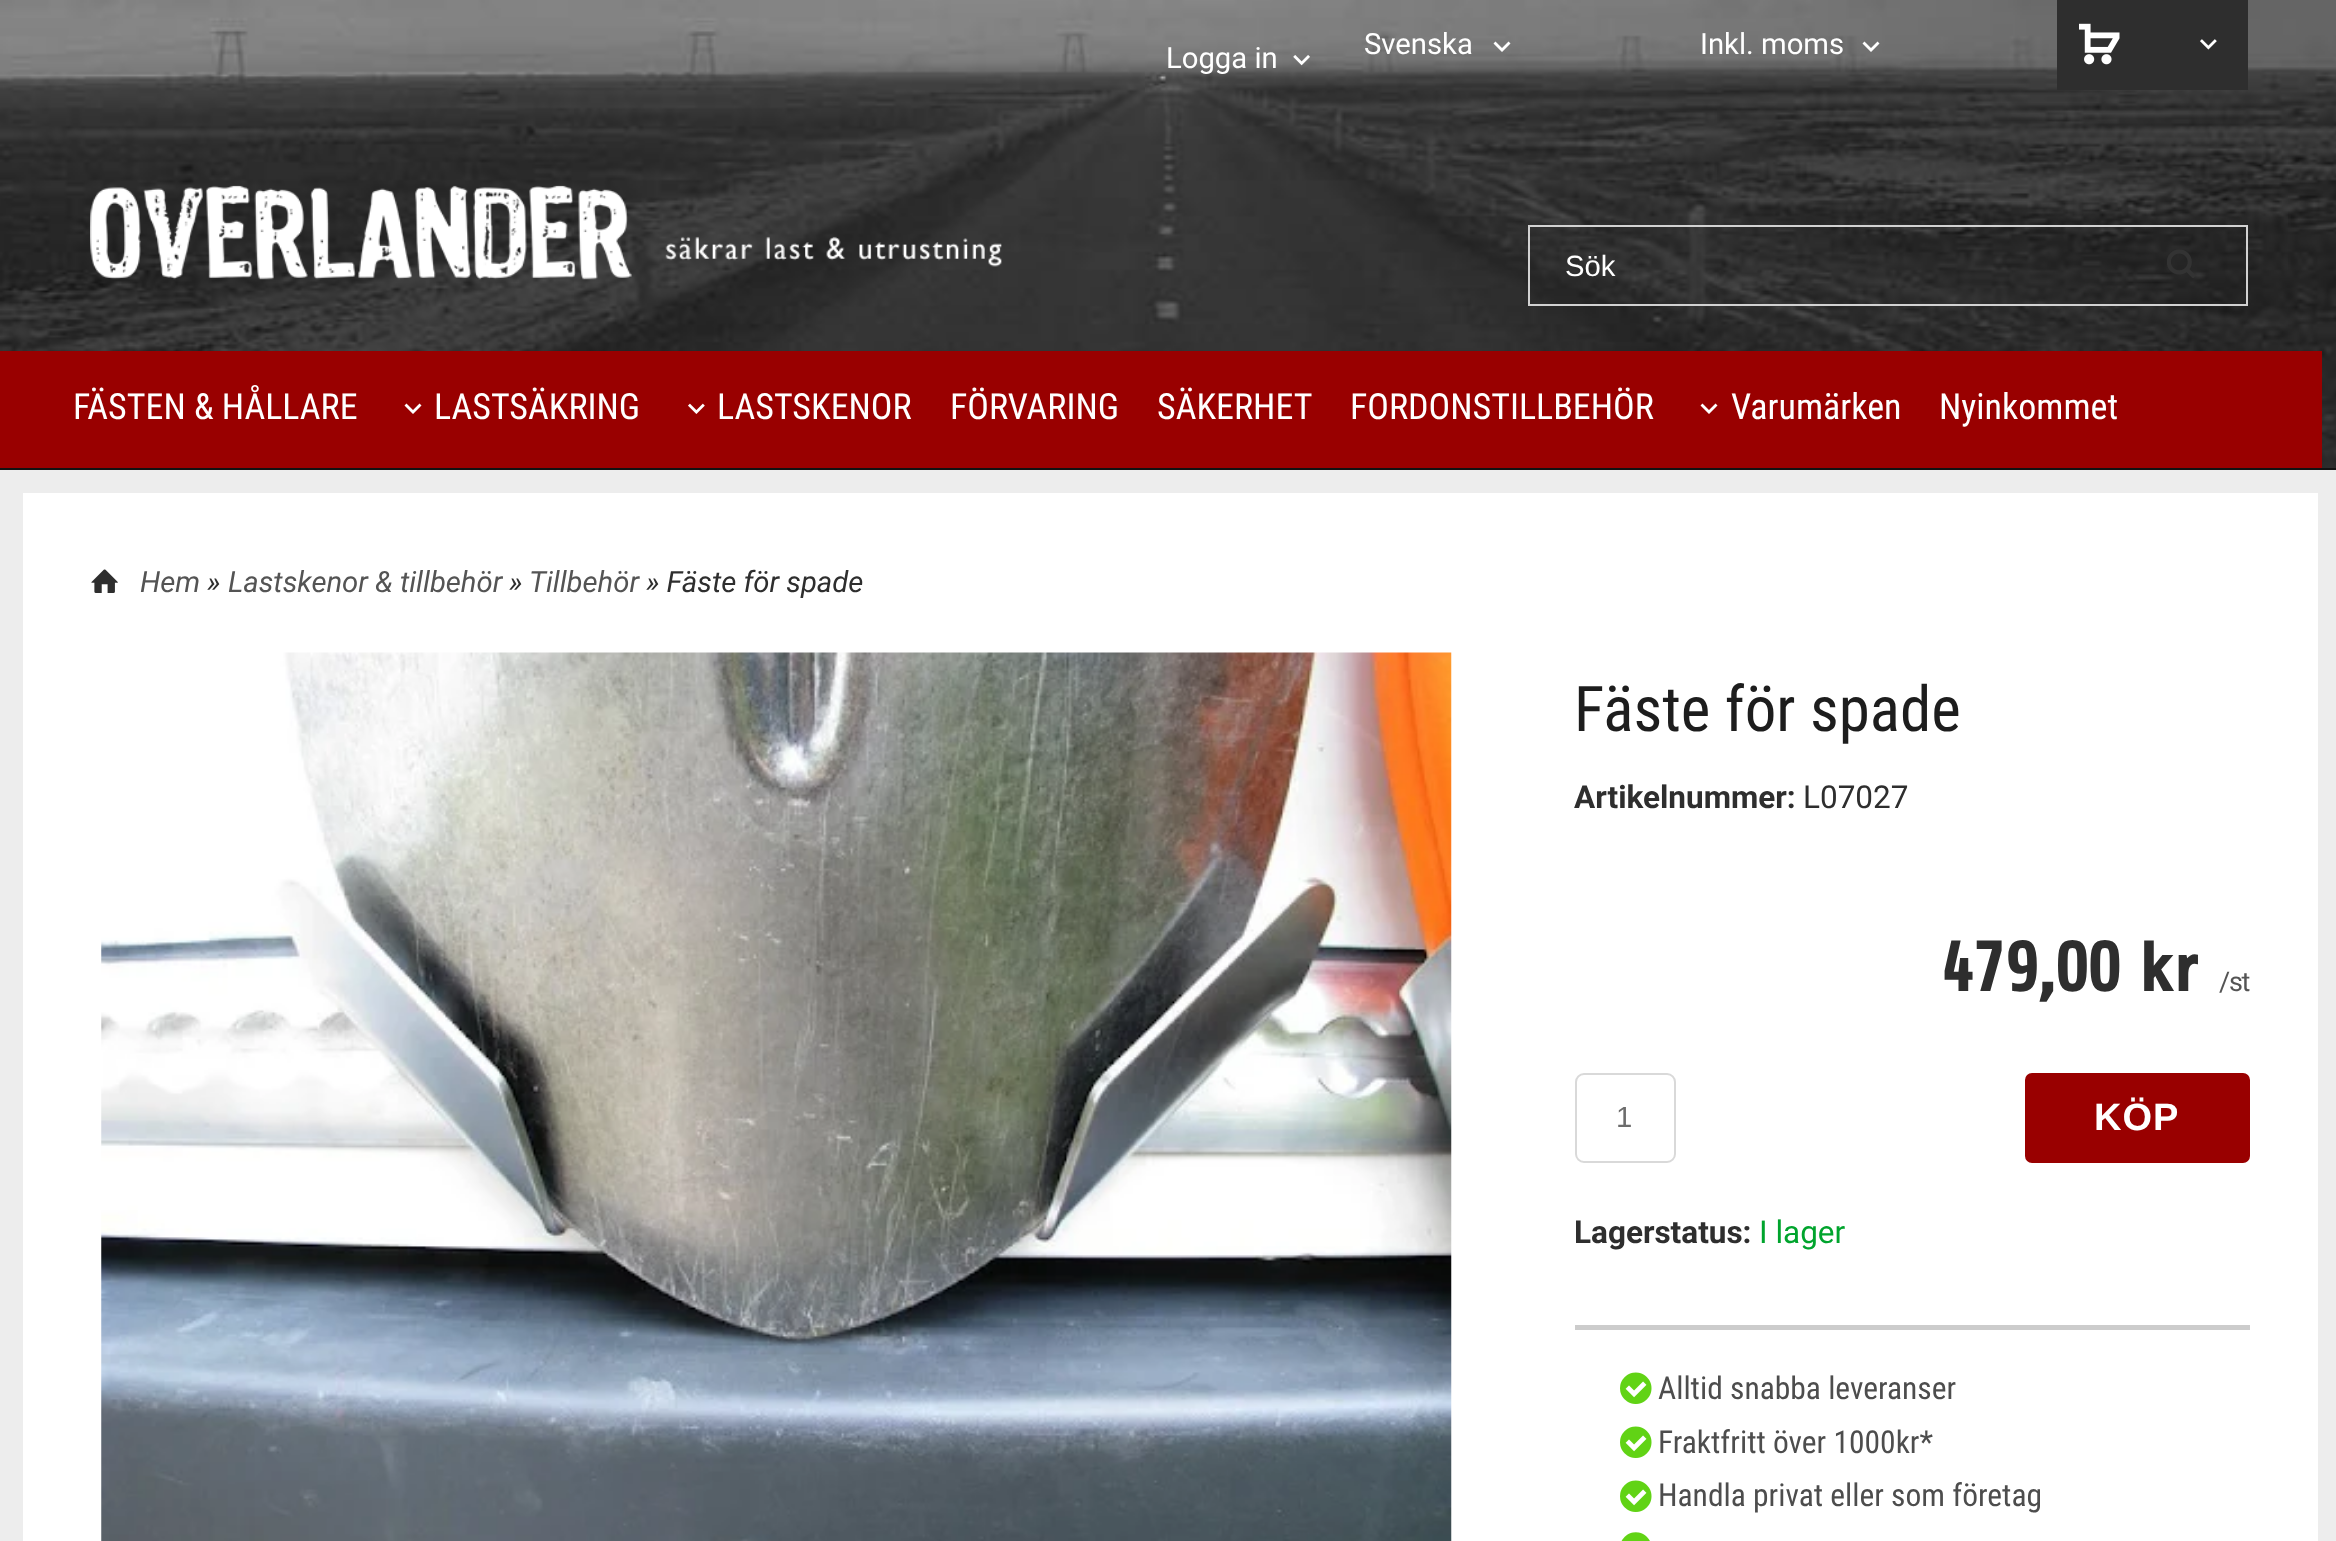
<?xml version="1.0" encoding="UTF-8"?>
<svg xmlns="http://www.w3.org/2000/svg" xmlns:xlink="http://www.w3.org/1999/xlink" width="2336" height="1541">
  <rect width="100%" height="100%" fill="#ededed" />
  <rect y="468" width="2336" height="2" fill="#121212" />
  <image x="0" y="0" width="2336" height="468" xlink:href="image1.png" />
  <path d="M 1502 52 l -8.5 -8.5 l 2 -2 l 6.5 6.5 l 6.5 -6.5 l 2 2 z" fill="#ffffff" />
  <path d="M 1871 52 l -8.5 -8.5 l 2 -2 l 6.5 6.5 l 6.5 -6.5 l 2 2 z" fill="#ffffff" />
  <image x="1293" y="55" width="17" height="11" xlink:href="image2.png" />
  <rect x="2057" width="191" height="90" fill="#2e2e2e" />
  <image x="2079" y="23" width="41" height="42" xlink:href="image3.png" />
  <image x="2200" y="39" width="17" height="11" xlink:href="image4.png" />
  <image x="90" y="185" width="912" height="95" xlink:href="image5.png" />
  <rect x="1529" y="226" width="718" height="79" fill="none" stroke="#d2d2d2" stroke-width="2" />
  <image x="2167" y="249" width="28" height="29" xlink:href="image6.png" />
  <rect y="351" width="2322" height="117" fill="#990000" />
  <path d="M 413 414 l -8.5 -8.5 l 2 -2 l 6.5 6.5 l 6.5 -6.5 l 2 2 z" fill="#ffffff" />
  <image x="688" y="403" width="17" height="11" xlink:href="image7.png" />
  <path d="M 1709 414 l -8.5 -8.5 l 2 -2 l 6.5 6.5 l 6.5 -6.5 l 2 2 z" fill="#ffffff" />
  <rect x="23" y="493" width="2295" height="1048" fill="#ffffff" />
  <image x="91" y="569" width="27" height="24" xlink:href="image8.png" />
  <image x="101" y="652" width="1351" height="889" xlink:href="image9.png" />
  <rect x="1576" y="1074" width="99" height="88" rx="8" fill="none" stroke="#d9d9d9" stroke-width="2" />
  <rect x="2026" y="1074" width="223" height="88" rx="6" fill="#990000" stroke="#990000" stroke-width="2" />
  <rect x="1575" y="1325" width="675" height="5" fill="#cccccc" />
  <image x="1620" y="1372" width="32" height="32" xlink:href="image10.png" />
  <image x="1620" y="1426" width="32" height="32" xlink:href="image10.png" />
  <image x="1620" y="1480" width="32" height="32" xlink:href="image10.png" />
  <image x="1621" y="1532" width="29" height="9" xlink:href="image11.png" />
  <text x="1364" y="54" style="font-family: Roboto; font-size: 29.25px; fill: #ffffff">Svenska</text>
  <text x="1700" y="54" style="font-family: Roboto; font-size: 29.25px; fill: #ffffff">Inkl. moms</text>
  <text x="1166" y="68" style="font-family: Roboto; font-size: 29.25px; fill: #ffffff">Logga in</text>
  <text x="1565" y="276" style="font-family: Liberation Sans; font-size: 29.25px; fill: #ffffff">Sök</text>
  <text x="73" y="419" style="font-family: Roboto Condensed; font-size: 36px; fill: #ffffff">FÄSTEN &amp; HÅLLARE</text>
  <text x="434" y="419" style="font-family: Roboto Condensed; font-size: 36px; fill: #ffffff">LASTSÄKRING</text>
  <text x="717" y="419" style="font-family: Roboto Condensed; font-size: 36px; fill: #ffffff">LASTSKENOR</text>
  <text x="950" y="419" style="font-family: Roboto Condensed; font-size: 36px; fill: #ffffff">FÖRVARING</text>
  <text x="1157" y="419" style="font-family: Roboto Condensed; font-size: 36px; fill: #ffffff">SÄKERHET</text>
  <text x="1350" y="419" style="font-family: Roboto Condensed; font-size: 36px; fill: #ffffff">FORDONSTILLBEHÖR</text>
  <text x="1731" y="419" style="font-family: Roboto Condensed; font-size: 36px; fill: #ffffff">Varumärken</text>
  <text x="1939" y="419" style="font-family: Roboto Condensed; font-size: 36px; fill: #ffffff">Nyinkommet</text>
  <text x="140" y="592" style="font-family: Roboto; font-size: 29.25px; font-style: italic; fill: #545454">Hem</text>
  <text x="207" y="592" style="font-family: Roboto; font-size: 29.25px; font-style: italic; fill: #2e2e2e">»</text>
  <text x="228" y="592" style="font-family: Roboto; font-size: 29.25px; font-style: italic; fill: #545454">Lastskenor &amp; tillbehör</text>
  <text x="509" y="592" style="font-family: Roboto; font-size: 29.25px; font-style: italic; fill: #2e2e2e">»</text>
  <text x="529" y="592" style="font-family: Roboto; font-size: 29.25px; font-style: italic; fill: #545454">Tillbehör</text>
  <text x="646" y="592" style="font-family: Roboto; font-size: 29.25px; font-style: italic; fill: #2e2e2e">» Fäste för spade</text>
  <text x="1574" y="731" style="font-family: Roboto Condensed; font-size: 63px; fill: #1d1d1d">Fäste för spade</text>
  <text x="1574" y="808" style="font-family: Roboto; font-size: 31.5px; font-weight: bold; fill: #2e2e2e">Artikelnummer:</text>
  <text x="1803" y="808" style="font-family: Roboto; font-size: 31.5px; fill: #2e2e2e">L07027</text>
  <text x="1941" y="991" style="font-family: Share; font-size: 72px; font-weight: bold; letter-spacing: -1.25px; fill: #2e2e2e">479,00 kr</text>
  <text x="2219" y="991" style="font-family: Roboto; font-size: 27px; letter-spacing: -1.25px; fill: #545454">/st</text>
  <text x="1616" y="1127" style="font-family: Liberation Sans; font-size: 29.25px; fill: #6c6c6c">1</text>
  <text x="2094" y="1130" style="font-family: Liberation Sans; font-size: 38px; font-weight: bold; letter-spacing: 1px; fill: #ffffff">KÖP</text>
  <text x="1574" y="1243" style="font-family: Roboto; font-size: 31.5px; font-weight: bold; fill: #2e2e2e">Lagerstatus:</text>
  <text x="1759" y="1243" style="font-family: Roboto; font-size: 31.5px; fill: #00a42d">I lager</text>
  <text x="1658" y="1399" style="font-family: Roboto Condensed; font-size: 31.5px; fill: #4d4d4d">Alltid snabba leveranser</text>
  <text x="1658" y="1453" style="font-family: Roboto Condensed; font-size: 31.5px; fill: #4d4d4d">Fraktfritt över 1000kr*</text>
  <text x="1658" y="1506" style="font-family: Roboto Condensed; font-size: 31.5px; fill: #4d4d4d">Handla privat eller som företag</text>
</svg>
